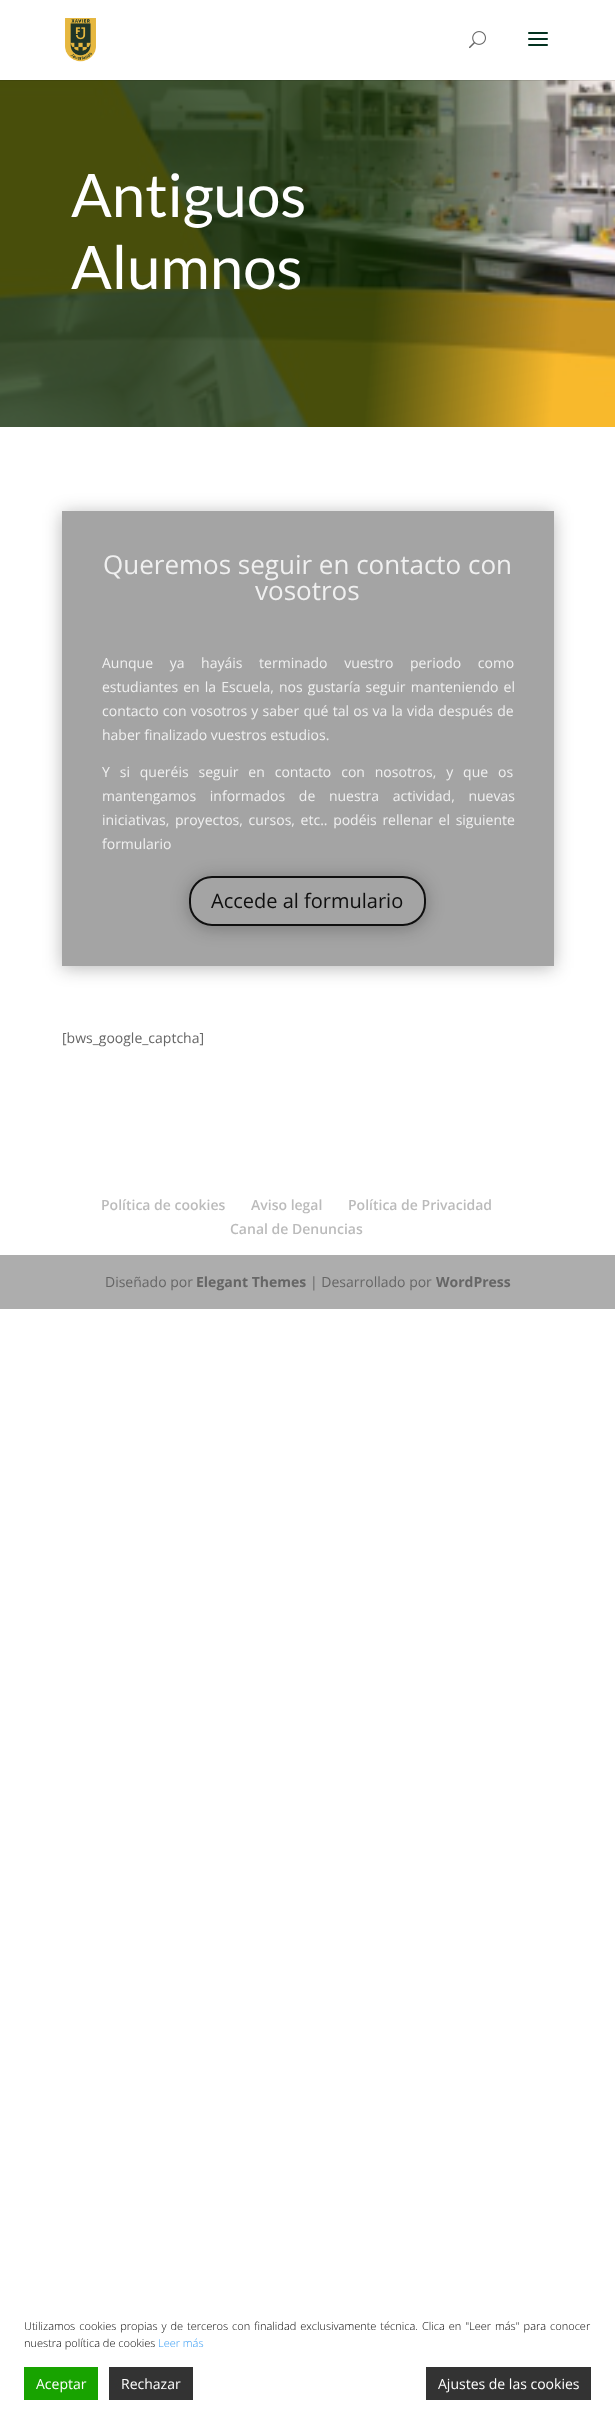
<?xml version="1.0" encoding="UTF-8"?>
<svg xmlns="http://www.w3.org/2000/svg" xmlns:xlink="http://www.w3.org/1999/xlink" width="615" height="2424">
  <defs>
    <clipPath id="clip1"><path d="M 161 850 h 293 v 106 h -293 z m 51 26 h 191 c 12.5 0 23 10.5 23 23 v 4 c 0 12.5 -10.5 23 -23 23 h -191 c -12.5 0 -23 -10.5 -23 -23 v -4 c 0 -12.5 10.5 -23 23 -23 z" clip-rule="evenodd" /></clipPath>
  </defs>
  <rect width="100%" height="100%" fill="#ffffff" />
  <image x="0" y="80" width="615" height="347" xlink:href="image4.png" />
  <rect y="80" width="615" height="1" fill="#000000" fill-opacity="0.1" />
  <image x="65" y="18" width="31" height="44" xlink:href="image1.png" />
  <image x="469" y="31" width="17" height="18" xlink:href="image2.png" />
  <image x="528" y="32" width="20" height="14" xlink:href="image3.png" />
  <rect x="62" y="513" width="492" height="455" fill="#0f0f0f" fill-opacity="0.3" filter="blur(9px)" />
  <rect x="62" y="511" width="492" height="455" fill="#a4a4a4" />
  <g clip-path="url(#clip1)">
    <rect x="189" y="878" width="237" height="50" rx="23" fill="#0f0f0f" fill-opacity="0.3" filter="blur(9px)" />
  </g>
  <rect x="190" y="877" width="235" height="48" rx="22" fill="none" stroke="#0f0f0f" stroke-width="2" />
  <rect y="1255" width="615" height="54" fill="#adadad" />
  <rect x="24" y="2367" width="74" height="33" fill="#18a300" />
  <rect x="109" y="2367" width="84" height="33" fill="#333333" />
  <rect x="426" y="2367" width="165" height="33" fill="#333333" />
  <text x="71" y="217" style="font-family: Lato; font-size: 60px; fill: #ffffff">Antiguos</text>
  <text x="71" y="289" style="font-family: Lato; font-size: 60px; fill: #ffffff">Alumnos</text>
  <text x="103" y="574" style="font-family: Open Sans; font-size: 26px; fill: #f0f0f0">Queremos seguir en contacto con</text>
  <text x="255" y="600" style="font-family: Open Sans; font-size: 26px; fill: #f0f0f0">vosotros</text>
  <text x="102" y="668" word-spacing="13" style="font-family: Open Sans; font-size: 14px; fill: #f0f0f0">Aunque ya hayáis terminado vuestro periodo como</text>
  <text x="102" y="692" word-spacing="1.5" style="font-family: Open Sans; font-size: 14px; fill: #f0f0f0">estudiantes en la Escuela, nos gustaría seguir manteniendo el</text>
  <text x="102" y="716" word-spacing="0.6" style="font-family: Open Sans; font-size: 14px; fill: #f0f0f0">contacto con vosotros y saber qué tal os va la vida después de</text>
  <text x="102" y="740" style="font-family: Open Sans; font-size: 14px; fill: #f0f0f0">haber finalizado vuestros estudios.</text>
  <text x="102" y="777" word-spacing="6.25" style="font-family: Open Sans; font-size: 14px; fill: #f0f0f0">Y si queréis seguir en contacto con nosotros, y que os</text>
  <text x="102" y="801" word-spacing="10" style="font-family: Open Sans; font-size: 14px; fill: #f0f0f0">mantengamos informados de nuestra actividad, nuevas</text>
  <text x="102" y="825" word-spacing="2" style="font-family: Open Sans; font-size: 14px; fill: #f0f0f0">iniciativas, proyectos, cursos, etc.. podéis rellenar el siguiente</text>
  <text x="102" y="849" style="font-family: Open Sans; font-size: 14px; fill: #f0f0f0">formulario</text>
  <text x="211" y="908" style="font-family: Open Sans; font-size: 20px; fill: #0f0f0f">Accede al formulario</text>
  <text x="62" y="1043" style="font-family: Open Sans; font-size: 14px; fill: #666666">[bws_google_captcha]</text>
  <text x="101" y="1210" style="font-family: Open Sans; font-size: 14px; font-weight: 600; fill: #bbbbbb">Política de cookies</text>
  <text x="251" y="1210" style="font-family: Open Sans; font-size: 14px; font-weight: 600; fill: #bbbbbb">Aviso legal</text>
  <text x="348" y="1210" style="font-family: Open Sans; font-size: 14px; font-weight: 600; fill: #bbbbbb">Política de Privacidad</text>
  <text x="230" y="1234" style="font-family: Open Sans; font-size: 14px; font-weight: 600; fill: #bbbbbb">Canal de Denuncias</text>
  <text x="105" y="1287" style="font-family: Open Sans; font-size: 14px; fill: #666666">Diseñado por</text>
  <text x="196" y="1287" style="font-family: Open Sans; font-size: 14px; font-weight: bold; fill: #666666">Elegant Themes</text>
  <text x="310" y="1287" style="font-family: Open Sans; font-size: 14px; fill: #666666">| Desarrollado por</text>
  <text x="436" y="1287" style="font-family: Open Sans; font-size: 14px; font-weight: bold; fill: #666666">WordPress</text>
  <text x="24" y="2330" word-spacing="1.1" style="font-family: Open Sans; font-size: 11px; font-weight: 300; fill: #000000">Utilizamos cookies propias y de terceros con finalidad exclusivamente técnica. Clica en "Leer más" para conocer</text>
  <text x="24" y="2347" style="font-family: Open Sans; font-size: 11px; font-weight: 300; fill: #000000">nuestra política de cookies</text>
  <text x="158" y="2347" style="font-family: Open Sans; font-size: 11px; font-weight: 300; fill: #359bf5">Leer más</text>
  <text x="36" y="2389" style="font-family: Open Sans; font-size: 14px; fill: #ffffff">Aceptar</text>
  <text x="121" y="2389" style="font-family: Open Sans; font-size: 14px; fill: #ffffff">Rechazar</text>
  <text x="438" y="2389" style="font-family: Open Sans; font-size: 14px; fill: #ffffff">Ajustes de las cookies</text>
</svg>
